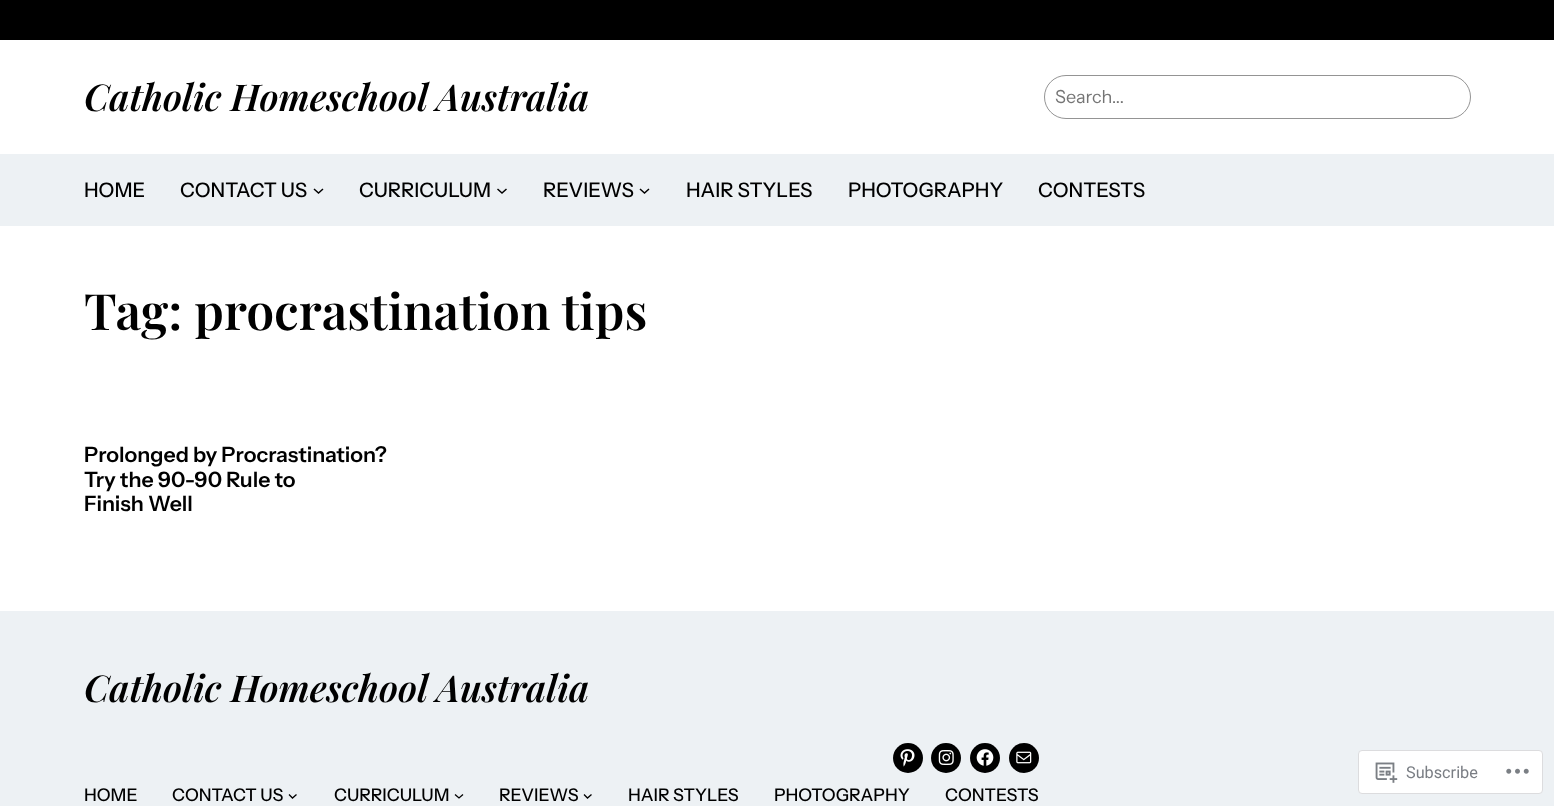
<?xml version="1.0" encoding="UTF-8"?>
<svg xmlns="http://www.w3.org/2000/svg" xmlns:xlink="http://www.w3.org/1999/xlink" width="1554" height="806">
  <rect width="100%" height="100%" fill="#ffffff" />
  <rect width="1554" height="40" fill="#000000" />
  <rect x="1044.5" y="75.5" width="426" height="43" rx="21.5" fill="none" stroke="#949494" />
  <rect y="154" width="1554" height="72" fill="#edf1f4" />
  <path d="M 314 189 l 4.5 4 l 4.5 -4" fill="none" stroke="#000000" stroke-width="1.5" />
  <path d="M 497.5 189 l 4.5 4 l 4.5 -4" fill="none" stroke="#000000" stroke-width="1.5" />
  <path d="M 640 189 l 4.5 4 l 4.5 -4" fill="none" stroke="#000000" stroke-width="1.5" />
  <rect y="611" width="1554" height="195" fill="#edf1f4" />
  <circle cx="908" cy="758" r="15" fill="#000000" />
  <image x="900" y="749" width="15" height="18" xlink:href="image1.png" />
  <circle cx="946" cy="758" r="15" fill="#000000" />
  <image x="938" y="750" width="16" height="15" xlink:href="image2.png" />
  <circle cx="985" cy="758" r="15" fill="#000000" />
  <image x="976" y="749" width="18" height="17" xlink:href="image3.png" />
  <circle cx="1024" cy="758" r="15" fill="#000000" />
  <image x="1016" y="751" width="16" height="13" xlink:href="image4.png" />
  <path d="M 289 794.5 l 3.5 3.5 l 4 -3.5" fill="none" stroke="#000000" stroke-width="1.3" />
  <path d="M 455 794.5 l 4 3.5 l 4 -3.5" fill="none" stroke="#000000" stroke-width="1.3" />
  <path d="M 584 794.5 l 3.5 3.5 l 4 -3.5" fill="none" stroke="#000000" stroke-width="1.3" />
  <rect x="1358.5" y="750.5" width="184" height="43" rx="3.5" fill="#ffffff" stroke="#dcdcde" />
  <image x="1375" y="762" width="23" height="21" xlink:href="image5.png" />
  <image x="1506" y="768" width="23" height="6" xlink:href="image6.png" />
  <text x="84" y="111" style="font-family: Playfair Display; font-size: 37px; font-weight: 600; font-style: italic; fill: #000000">Catholic Homeschool Australia</text>
  <text x="1055" y="103" style="font-family: Instrument Sans; font-size: 18px; fill: #757575">Search...</text>
  <text x="84" y="197" style="font-family: Instrument Sans; font-size: 20px; font-weight: 500; fill: #000000">HOME</text>
  <text x="180" y="197" style="font-family: Instrument Sans; font-size: 20px; font-weight: 500; fill: #000000">CONTACT US</text>
  <text x="359" y="197" style="font-family: Instrument Sans; font-size: 20px; font-weight: 500; fill: #000000">CURRICULUM</text>
  <text x="543" y="197" style="font-family: Instrument Sans; font-size: 20px; font-weight: 500; fill: #000000">REVIEWS</text>
  <text x="686" y="197" style="font-family: Instrument Sans; font-size: 20px; font-weight: 500; fill: #000000">HAIR STYLES</text>
  <text x="848" y="197" style="font-family: Instrument Sans; font-size: 20px; font-weight: 500; fill: #000000">PHOTOGRAPHY</text>
  <text x="1038" y="197" style="font-family: Instrument Sans; font-size: 20px; font-weight: 500; fill: #000000">CONTESTS</text>
  <text x="84" y="330" style="font-family: Playfair Display; font-size: 50px; font-weight: 600; fill: #000000">Tag: procrastination tips</text>
  <text x="84" y="462" style="font-family: Instrument Sans; font-size: 21.25px; font-weight: 600; fill: #000000">Prolonged by Procrastination?</text>
  <text x="84" y="487" style="font-family: Instrument Sans; font-size: 21.25px; font-weight: 600; fill: #000000">Try the 90-90 Rule to</text>
  <text x="84" y="511" style="font-family: Instrument Sans; font-size: 21.25px; font-weight: 600; fill: #000000">Finish Well</text>
  <text x="84" y="702" style="font-family: Playfair Display; font-size: 37px; font-weight: 600; font-style: italic; fill: #000000">Catholic Homeschool Australia</text>
  <text x="84" y="801" style="font-family: Instrument Sans; font-size: 17.5px; font-weight: 500; fill: #000000">HOME</text>
  <text x="172" y="801" style="font-family: Instrument Sans; font-size: 17.5px; font-weight: 500; fill: #000000">CONTACT US</text>
  <text x="334" y="801" style="font-family: Instrument Sans; font-size: 17.5px; font-weight: 500; fill: #000000">CURRICULUM</text>
  <text x="499" y="801" style="font-family: Instrument Sans; font-size: 17.5px; font-weight: 500; fill: #000000">REVIEWS</text>
  <text x="628" y="801" style="font-family: Instrument Sans; font-size: 17.5px; font-weight: 500; fill: #000000">HAIR STYLES</text>
  <text x="774" y="801" style="font-family: Instrument Sans; font-size: 17.5px; font-weight: 500; fill: #000000">PHOTOGRAPHY</text>
  <text x="945" y="801" style="font-family: Instrument Sans; font-size: 17.5px; font-weight: 500; fill: #000000">CONTESTS</text>
  <text x="1406" y="778" style="font-family: Roboto; font-size: 16.25px; fill: #7a7e84">Subscribe</text>
</svg>
